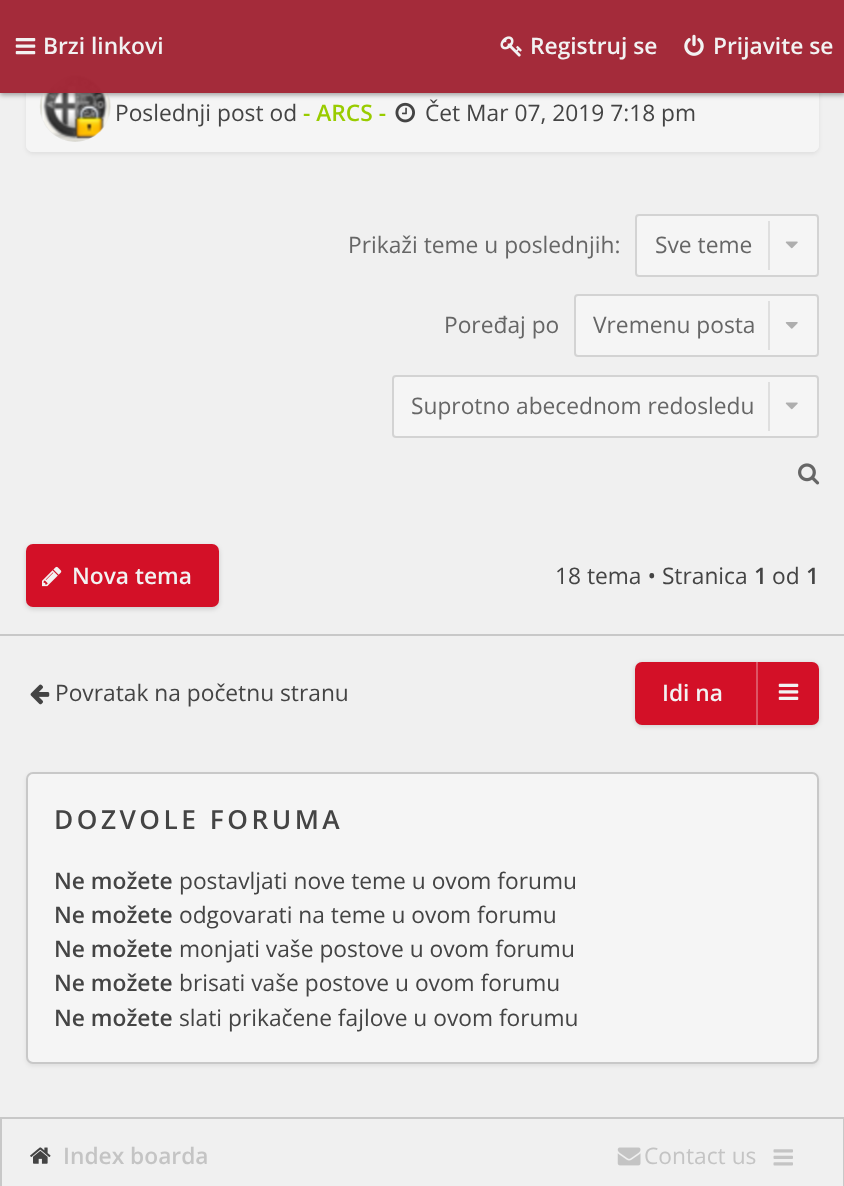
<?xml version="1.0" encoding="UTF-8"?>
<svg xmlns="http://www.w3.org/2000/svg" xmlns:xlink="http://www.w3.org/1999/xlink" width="844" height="1186">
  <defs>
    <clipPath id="clip1"><path d="M 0 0 h 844 v 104 h -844 z m 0 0 h 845 v 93 h -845 z" clip-rule="evenodd" /></clipPath>
  </defs>
  <rect width="100%" height="100%" fill="#f0f0f0" />
  <rect x="26" y="-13" width="793" height="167" rx="7" fill="#000000" fill-opacity="0.07" filter="blur(2px)" />
  <rect x="26" y="-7" width="793" height="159" rx="7" fill="#f5f5f5" />
  <path d="M 26 39 h 793 v 106 c 0 4 -3 7 -7 7 h -779 c -4 0 -7 -3 -7 -7 z" fill="#f5f5f5" />
  <rect x="35" y="39" width="784" height="2" fill="#d9d9d9" />
  <circle cx="75" cy="107" r="35" fill="#e8e8e8" />
  <image x="39" y="71" width="72" height="71" xlink:href="image4.png" />
  <image x="395" y="102" width="20" height="21" xlink:href="image5.png" />
  <g clip-path="url(#clip1)">
    <rect y="2" width="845" height="93" fill="#000000" fill-opacity="0.35" filter="blur(2.5px)" />
  </g>
  <rect width="844" height="93" fill="#a22736" fill-opacity="0.98" />
  <image x="15" y="38" width="21" height="17" xlink:href="image1.png" />
  <image x="500" y="36" width="22" height="21" xlink:href="image2.png" />
  <image x="684" y="34" width="20" height="22" xlink:href="image3.png" />
  <rect x="636" y="215" width="182" height="61" rx="3" fill="#f5f5f5" stroke="#d3d3d3" stroke-width="2" />
  <rect x="768" y="221" width="2" height="49" fill="#dfdfdf" />
  <image x="785" y="241" width="13" height="8" xlink:href="image6.png" />
  <rect x="575" y="295" width="243" height="61" rx="3" fill="#f5f5f5" stroke="#d3d3d3" stroke-width="2" />
  <rect x="768" y="301" width="2" height="49" fill="#dfdfdf" />
  <image x="785" y="322" width="13" height="7" xlink:href="image7.png" />
  <rect x="393" y="376" width="425" height="61" rx="3" fill="#f5f5f5" stroke="#d3d3d3" stroke-width="2" />
  <rect x="768" y="382" width="2" height="49" fill="#dfdfdf" />
  <image x="785" y="402" width="13" height="8" xlink:href="image6.png" />
  <image x="798" y="463" width="22" height="22" xlink:href="image8.png" />
  <rect y="634" width="844" height="2" fill="#c8c8c8" />
  <rect x="26" y="546" width="193" height="63" rx="7" fill="#000000" fill-opacity="0.15" filter="blur(2.5px)" />
  <rect x="26" y="544" width="193" height="63" rx="7" fill="#d31027" />
  <image x="42" y="566" width="20" height="21" xlink:href="image9.png" />
  <image x="30" y="684" width="20" height="21" xlink:href="image10.png" />
  <rect x="635" y="663" width="184" height="63" rx="7" fill="#000000" fill-opacity="0.15" filter="blur(2.5px)" />
  <rect x="635" y="662" width="184" height="63" rx="7" fill="#d31027" />
  <rect x="756" y="662" width="2" height="63" fill="#dd5565" />
  <image x="778" y="683" width="21" height="17" xlink:href="image11.png" />
  <rect x="26" y="774" width="793" height="292" rx="7" fill="#000000" fill-opacity="0.07" filter="blur(2px)" />
  <rect x="27" y="773" width="791" height="290" rx="6" fill="#f5f5f5" stroke="#c8c8c8" stroke-width="2" />
  <rect x="1" y="1118" width="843" height="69" fill="none" stroke="#c8c8c8" stroke-width="2" />
  <image x="30" y="1147" width="21" height="17" xlink:href="image12.png" />
  <image x="617" y="1147" width="24" height="19" xlink:href="image13.png" />
  <image x="773" y="1149" width="20" height="17" xlink:href="image14.png" />
  <text x="43" y="54" style="font-family: Open Sans; font-size: 22.75px; font-weight: 600; fill: #f2f2f2">Brzi linkovi</text>
  <text x="530" y="54" style="font-family: Open Sans; font-size: 22.75px; font-weight: 600; fill: #f2f2f2">Registruj se</text>
  <text x="713" y="54" style="font-family: Open Sans; font-size: 22.75px; font-weight: 600; fill: #f2f2f2">Prijavite se</text>
  <text x="115" y="121" style="font-family: Open Sans; font-size: 22.75px; fill: #444444">Poslednji post od</text>
  <text x="303" y="121" style="font-family: Open Sans; font-size: 22.75px; font-weight: 600; fill: #99cc00">- ARCS -</text>
  <text x="425" y="121" style="font-family: Open Sans; font-size: 22.75px; fill: #444444">Čet Mar 07, 2019 7:18 pm</text>
  <text x="348" y="253" style="font-family: Open Sans; font-size: 22.75px; fill: #666666">Prikaži teme u poslednjih:</text>
  <text x="655" y="253" style="font-family: Open Sans; font-size: 22.75px; fill: #666666">Sve teme</text>
  <text x="444" y="333" style="font-family: Open Sans; font-size: 22.75px; fill: #666666">Poređaj po</text>
  <text x="593" y="333" style="font-family: Open Sans; font-size: 22.75px; fill: #666666">Vremenu posta</text>
  <text x="411" y="414" style="font-family: Open Sans; font-size: 22.75px; fill: #666666">Suprotno abecednom redosledu</text>
  <text x="72" y="584" style="font-family: Open Sans; font-size: 22.75px; font-weight: 600; fill: #f2f2f2">Nova tema</text>
  <text x="555" y="584" style="font-family: Open Sans; font-size: 22.75px; fill: #444444">18 tema • Stranica</text>
  <text x="754" y="584" style="font-family: Open Sans; font-size: 22.75px; font-weight: 600; fill: #444444">1</text>
  <text x="772" y="584" style="font-family: Open Sans; font-size: 22.75px; fill: #444444">od</text>
  <text x="806" y="584" style="font-family: Open Sans; font-size: 22.75px; font-weight: 600; fill: #444444">1</text>
  <text x="55" y="701" style="font-family: Open Sans; font-size: 22.75px; fill: #444444">Povratak na početnu stranu</text>
  <text x="662" y="701" style="font-family: Open Sans; font-size: 22.75px; font-weight: 600; fill: #f2f2f2">Idi na</text>
  <text x="54" y="829" style="font-family: Open Sans; font-size: 26.25px; font-weight: 600; letter-spacing: 3.5px; fill: #444444">DOZVOLE FORUMA</text>
  <text x="54" y="889" style="font-family: Open Sans; font-size: 22.75px; font-weight: 600; fill: #444444">Ne možete</text>
  <text x="179" y="889" style="font-family: Open Sans; font-size: 22.75px; fill: #444444">postavljati nove teme u ovom forumu</text>
  <text x="54" y="923" style="font-family: Open Sans; font-size: 22.75px; font-weight: 600; fill: #444444">Ne možete</text>
  <text x="179" y="923" style="font-family: Open Sans; font-size: 22.75px; fill: #444444">odgovarati na teme u ovom forumu</text>
  <text x="54" y="957" style="font-family: Open Sans; font-size: 22.75px; font-weight: 600; fill: #444444">Ne možete</text>
  <text x="179" y="957" style="font-family: Open Sans; font-size: 22.75px; fill: #444444">monjati vaše postove u ovom forumu</text>
  <text x="54" y="991" style="font-family: Open Sans; font-size: 22.75px; font-weight: 600; fill: #444444">Ne možete</text>
  <text x="179" y="991" style="font-family: Open Sans; font-size: 22.75px; fill: #444444">brisati vaše postove u ovom forumu</text>
  <text x="54" y="1026" style="font-family: Open Sans; font-size: 22.75px; font-weight: 600; fill: #444444">Ne možete</text>
  <text x="179" y="1026" style="font-family: Open Sans; font-size: 22.75px; fill: #444444">slati prikačene fajlove u ovom forumu</text>
  <text x="63" y="1164" style="font-family: Open Sans; font-size: 22.75px; font-weight: 600; fill: #c4c4c4">Index boarda</text>
  <text x="644" y="1164" style="font-family: Open Sans; font-size: 22.75px; fill: #c4c4c4">Contact us</text>
</svg>
